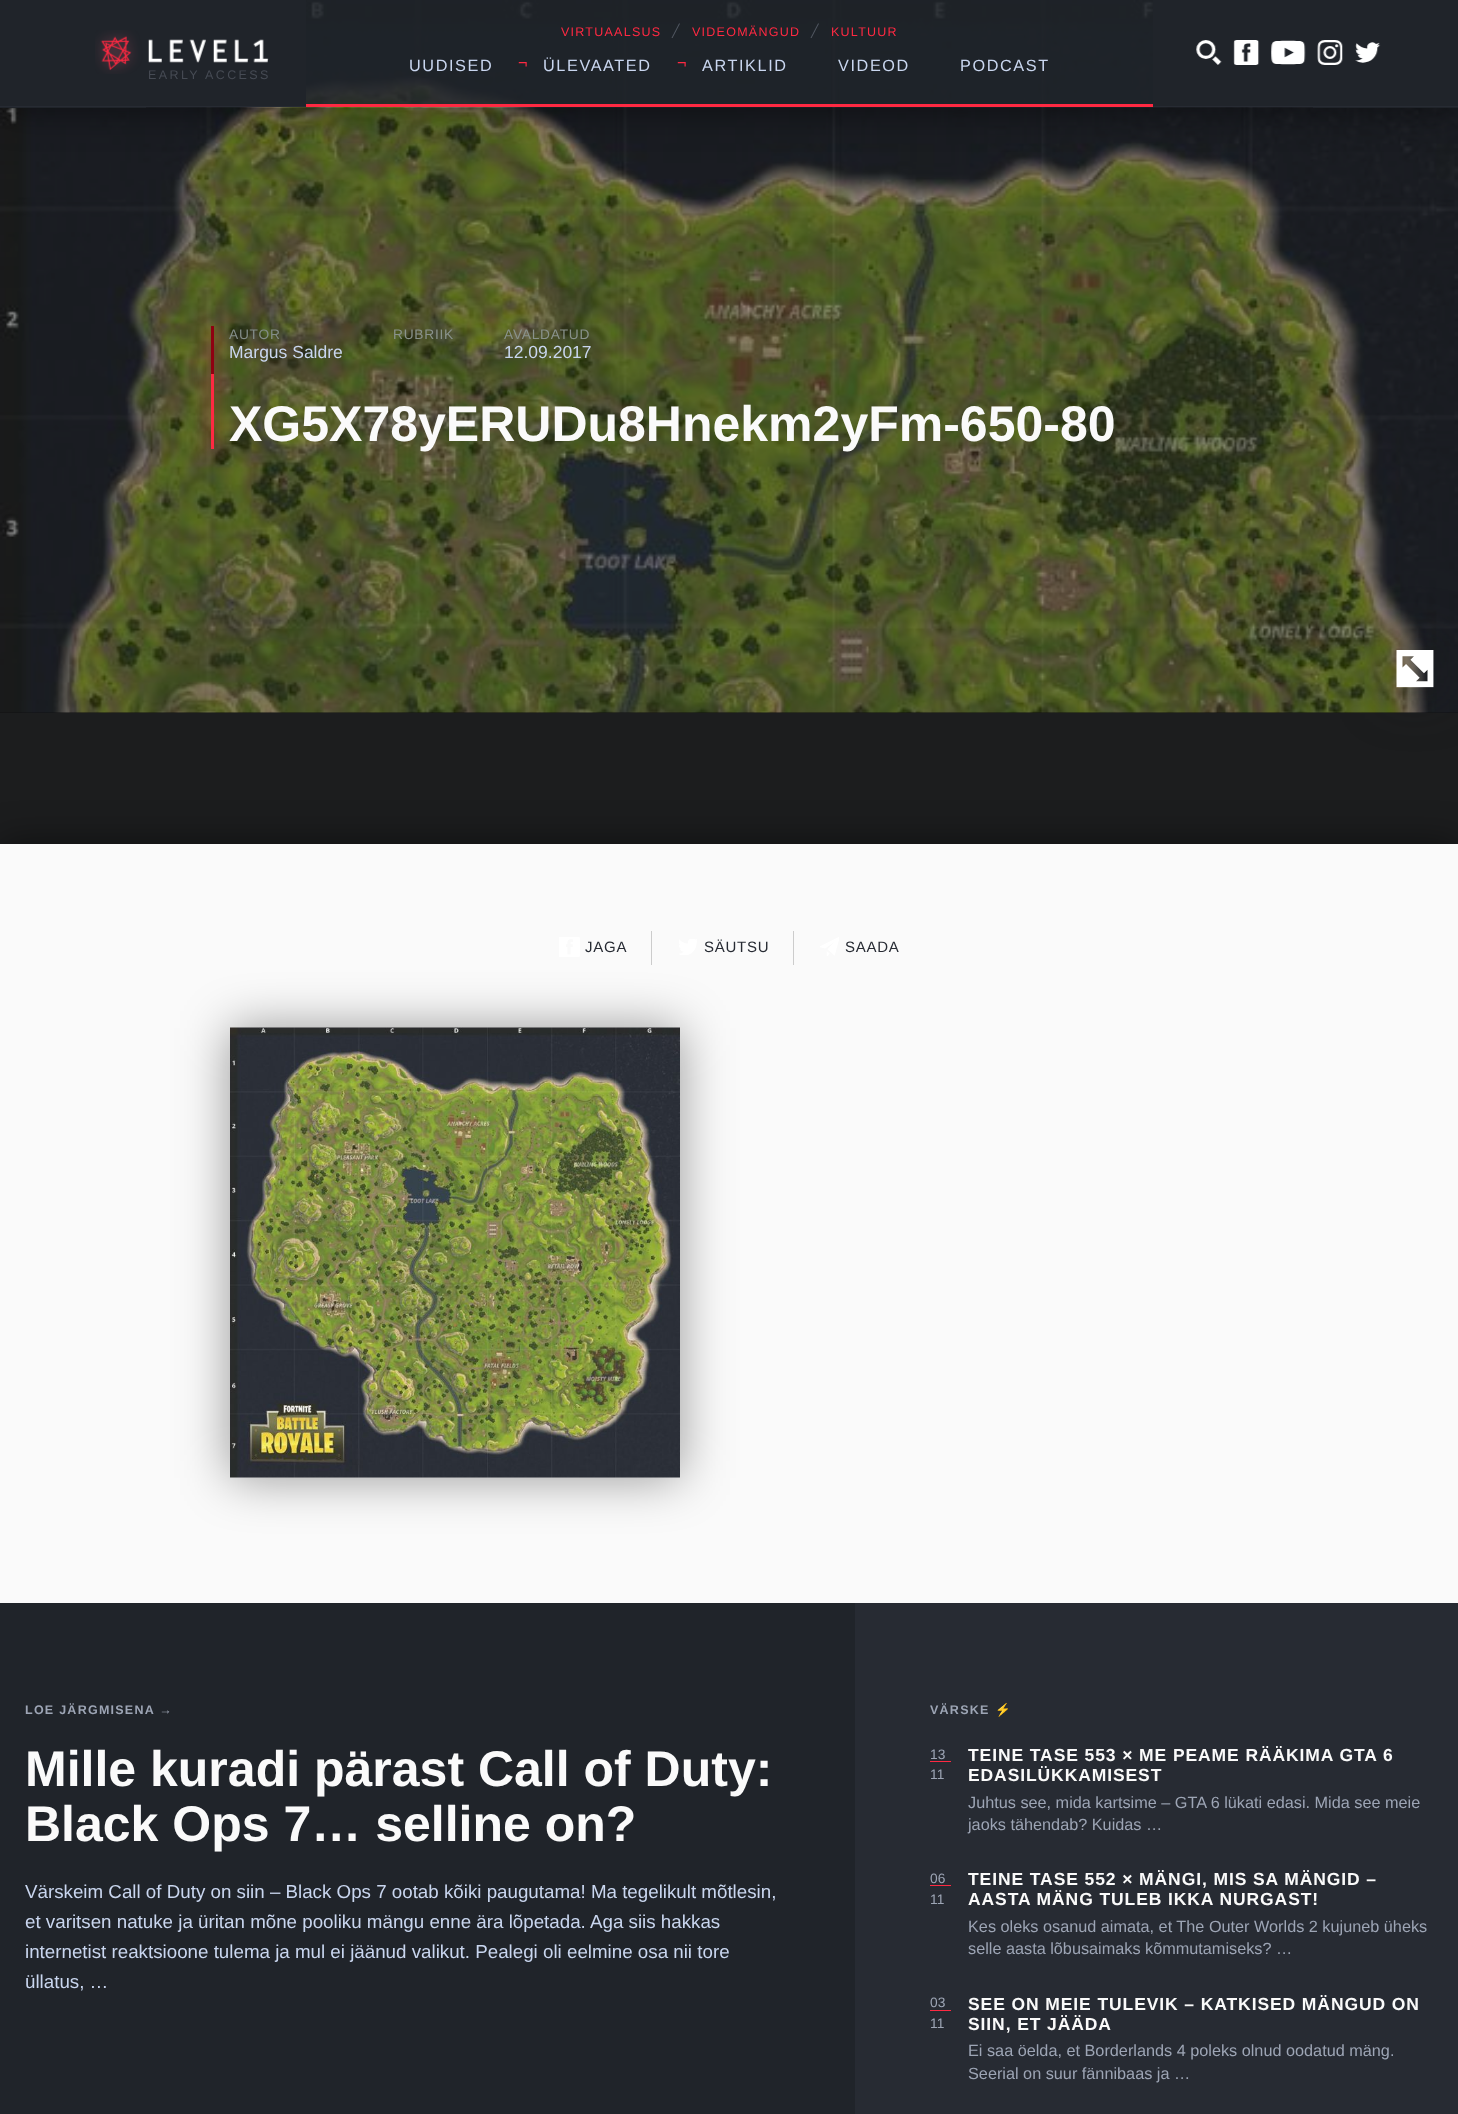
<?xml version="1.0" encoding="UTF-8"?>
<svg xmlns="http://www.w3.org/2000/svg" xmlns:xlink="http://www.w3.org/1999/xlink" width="1458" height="2114">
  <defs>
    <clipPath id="clip1"><path d="M 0 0 h 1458 v 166 h -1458 z m 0 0 h 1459 v 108 h -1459 z" clip-rule="evenodd" /></clipPath>
    <clipPath id="clip2"><path d="M 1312 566 h 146 v 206 h -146 z m 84 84 h 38 v 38 h -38 z" clip-rule="evenodd" /></clipPath>
  </defs>
  <rect width="100%" height="100%" fill="#1c1d1e" />
  <rect y="712" width="1458" height="1" fill="#111112" />
  <image x="0" y="0" width="1458" height="713" xlink:href="image7.png" />
  <g clip-path="url(#clip1)">
    <rect width="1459" height="108" fill="#000000" fill-opacity="0.5" filter="blur(19px)" />
  </g>
  <rect width="146" height="108" fill="#20242a" />
  <rect x="1313" width="145" height="108" fill="#20242a" />
  <rect y="106" width="1458" height="1" fill="#272b33" />
  <rect x="306" width="847" height="104" fill="#20242a" fill-opacity="0.85" />
  <rect x="1153" width="160" height="106" fill="#20242a" />
  <image x="1196" y="40" width="26" height="25" xlink:href="image1.png" />
  <image x="1233" y="40" width="27" height="25" xlink:href="image2.png" />
  <image x="1271" y="40" width="35" height="25" xlink:href="image3.png" />
  <image x="1317" y="40" width="26" height="25" xlink:href="image4.png" />
  <image x="1355" y="42" width="26" height="21" xlink:href="image5.png" />
  <rect x="146" width="160" height="106" fill="#20242a" />
  <image x="95" y="30" width="174" height="44" xlink:href="image6.png" />
  <rect x="306" y="104" width="847" height="3" fill="#ff2942" />
  <rect x="211" y="326" width="3" height="123" fill="#ff2942" filter="blur(9px)" />
  <rect x="211" y="374" width="3" height="75" fill="#ff2942" />
  <rect x="211" y="326" width="3" height="48" fill="#8f0011" />
  <g clip-path="url(#clip2)">
    <rect x="1396" y="650" width="38" height="38" fill="#1c1d1e" filter="blur(27.5px)" />
  </g>
  <image x="1396" y="650" width="38" height="38" xlink:href="image8.png" />
  <rect y="844" width="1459" height="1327" fill="#000000" fill-opacity="0.5" filter="blur(19px)" />
  <rect y="844" width="1458" height="759" fill="#fafafa" />
  <rect x="230" y="1028" width="450" height="450" fill="#000000" fill-opacity="0.4" filter="blur(25px)" />
  <image x="559" y="937" width="21" height="20" xlink:href="image9.png" />
  <rect x="651" y="931" width="1" height="34" fill="#cccccc" />
  <image x="679" y="939" width="18" height="16" xlink:href="image10.png" />
  <rect x="793" y="931" width="1" height="34" fill="#cccccc" />
  <image x="820" y="937" width="19" height="19" xlink:href="image11.png" />
  <image x="230" y="1027" width="450" height="451" xlink:href="image12.png" />
  <rect y="1603" width="855" height="511" fill="#20242a" />
  <rect x="855" y="1603" width="603" height="511" fill="#272b33" />
  <rect x="930" y="1761" width="21" height="1" fill="#ff2942" />
  <rect x="930" y="1885" width="21" height="1" fill="#ff2942" />
  <rect x="930" y="2010" width="21" height="1" fill="#ff2942" />
  <text x="561" y="36" style="font-family: Liberation Sans; font-size: 12.5px; letter-spacing: 1.25px; fill: #ff2942">VIRTUAALSUS</text>
  <text x="672" y="35" style="font-family: DejaVu Sans; font-size: 12.5px; letter-spacing: 1.25px; fill: #515761">╱</text>
  <text x="692" y="36" style="font-family: Liberation Sans; font-size: 12.5px; letter-spacing: 1.25px; fill: #ff2942">VIDEOMÄNGUD</text>
  <text x="811" y="35" style="font-family: DejaVu Sans; font-size: 12.5px; letter-spacing: 1.25px; fill: #515761">╱</text>
  <text x="831" y="36" style="font-family: Liberation Sans; font-size: 12.5px; letter-spacing: 1.25px; fill: #ff2942">KULTUUR</text>
  <text x="409" y="71" style="font-family: Liberation Sans; font-size: 16.25px; letter-spacing: 1.6px; fill: #c9d6ef">UUDISED</text>
  <text x="518" y="68" style="font-family: Liberation Sans; font-size: 16.25px; letter-spacing: 1.6px; fill: #ff2942">¬</text>
  <text x="543" y="71" style="font-family: Liberation Sans; font-size: 16.25px; letter-spacing: 1.6px; fill: #c9d6ef">ÜLEVAATED</text>
  <text x="677" y="68" style="font-family: Liberation Sans; font-size: 16.25px; letter-spacing: 1.6px; fill: #ff2942">¬</text>
  <text x="702" y="71" style="font-family: Liberation Sans; font-size: 16.25px; letter-spacing: 1.6px; fill: #c9d6ef">ARTIKLID</text>
  <text x="838" y="71" style="font-family: Liberation Sans; font-size: 16.25px; letter-spacing: 1.6px; fill: #c9d6ef">VIDEOD</text>
  <text x="960" y="71" style="font-family: Liberation Sans; font-size: 16.25px; letter-spacing: 1.6px; fill: #c9d6ef">PODCAST</text>
  <text x="148" y="79" style="font-family: Liberation Sans; font-size: 12.5px; letter-spacing: 2.4px; fill: #464b54">EARLY ACCESS</text>
  <text x="229" y="339" style="font-family: Liberation Sans; font-size: 13.75px; letter-spacing: 0.75px; fill: #838d89">AUTOR</text>
  <text x="229" y="358" style="font-family: Liberation Sans; font-size: 17.5px; fill: #c9d6ef">Margus Saldre</text>
  <text x="393" y="339" style="font-family: Liberation Sans; font-size: 13.75px; letter-spacing: 0.75px; fill: #89928c">RUBRIIK</text>
  <text x="504" y="339" style="font-family: Liberation Sans; font-size: 13.75px; letter-spacing: 0.75px; fill: #89928c">AVALDATUD</text>
  <text x="504" y="358" style="font-family: Liberation Sans; font-size: 17.5px; fill: #c9d6ef">12.09.2017</text>
  <text x="229" y="441" style="font-family: Liberation Sans; font-size: 50px; font-weight: bold; fill: #fafafa">XG5X78yERUDu8Hnekm2yFm-650-80</text>
  <text x="585" y="952" style="font-family: Liberation Sans; font-size: 15px; letter-spacing: 0.75px; fill: #272b33">JAGA</text>
  <text x="704" y="952" style="font-family: Liberation Sans; font-size: 15px; letter-spacing: 0.75px; fill: #272b33">SÄUTSU</text>
  <text x="845" y="952" style="font-family: Liberation Sans; font-size: 15px; letter-spacing: 0.75px; fill: #272b33">SAADA</text>
  <text x="25" y="1714" style="font-family: Liberation Sans; font-size: 12.5px; font-weight: bold; letter-spacing: 1.25px; fill: #9da5b5">LOE JÄRGMISENA →</text>
  <text x="25" y="1786" style="font-family: Liberation Sans; font-size: 50px; font-weight: bold; fill: #fafafa">Mille kuradi pärast Call of Duty:</text>
  <text x="25" y="1841" style="font-family: Liberation Sans; font-size: 50px; font-weight: bold; fill: #fafafa">Black Ops 7… selline on?</text>
  <text x="25" y="1898" style="font-family: Liberation Sans; font-size: 18.75px; fill: #c9d6ef">Värskeim Call of Duty on siin – Black Ops 7 ootab kõiki paugutama! Ma tegelikult mõtlesin,</text>
  <text x="25" y="1928" style="font-family: Liberation Sans; font-size: 18.75px; fill: #c9d6ef">et varitsen natuke ja üritan mõne pooliku mängu enne ära lõpetada. Aga siis hakkas</text>
  <text x="25" y="1958" style="font-family: Liberation Sans; font-size: 18.75px; fill: #c9d6ef">internetist reaktsioone tulema ja mul ei jäänud valikut. Pealegi oli eelmine osa nii tore</text>
  <text x="25" y="1988" style="font-family: Liberation Sans; font-size: 18.75px; fill: #c9d6ef">üllatus, …</text>
  <text x="930" y="1714" style="font-family: Liberation Sans; font-size: 12.5px; font-weight: bold; letter-spacing: 1.25px; fill: #9da5b5">VÄRSKE</text>
  <text x="995" y="1714" style="font-family: Noto Color Emoji; font-size: 12.5px; font-weight: bold; letter-spacing: 1.25px; fill: #9da5b5">⚡</text>
  <text x="930" y="1759" style="font-family: Liberation Sans; font-size: 13.75px; fill: #9da5b5">13</text>
  <text x="930" y="1779" style="font-family: Liberation Sans; font-size: 13.75px; fill: #9da5b5">11</text>
  <text x="968" y="1761" style="font-family: Liberation Sans; font-size: 17.5px; font-weight: bold; letter-spacing: 0.9px; fill: #fafafa">TEINE TASE 553 × ME PEAME RÄÄKIMA GTA 6</text>
  <text x="968" y="1781" style="font-family: Liberation Sans; font-size: 17.5px; font-weight: bold; letter-spacing: 0.9px; fill: #fafafa">EDASILÜKKAMISEST</text>
  <text x="968" y="1808" style="font-family: Liberation Sans; font-size: 16.25px; fill: #9da5b5">Juhtus see, mida kartsime – GTA 6 lükati edasi. Mida see meie</text>
  <text x="968" y="1830" style="font-family: Liberation Sans; font-size: 16.25px; fill: #9da5b5">jaoks tähendab? Kuidas …</text>
  <text x="930" y="1883" style="font-family: Liberation Sans; font-size: 13.75px; fill: #9da5b5">06</text>
  <text x="930" y="1904" style="font-family: Liberation Sans; font-size: 13.75px; fill: #9da5b5">11</text>
  <text x="968" y="1885" style="font-family: Liberation Sans; font-size: 17.5px; font-weight: bold; letter-spacing: 0.9px; fill: #fafafa">TEINE TASE 552 × MÄNGI, MIS SA MÄNGID –</text>
  <text x="968" y="1905" style="font-family: Liberation Sans; font-size: 17.5px; font-weight: bold; letter-spacing: 0.9px; fill: #fafafa">AASTA MÄNG TULEB IKKA NURGAST!</text>
  <text x="968" y="1932" style="font-family: Liberation Sans; font-size: 16.25px; fill: #9da5b5">Kes oleks osanud aimata, et The Outer Worlds 2 kujuneb üheks</text>
  <text x="968" y="1954" style="font-family: Liberation Sans; font-size: 16.25px; fill: #9da5b5">selle aasta lõbusaimaks kõmmutamiseks? …</text>
  <text x="930" y="2007" style="font-family: Liberation Sans; font-size: 13.75px; fill: #9da5b5">03</text>
  <text x="930" y="2028" style="font-family: Liberation Sans; font-size: 13.75px; fill: #9da5b5">11</text>
  <text x="968" y="2010" style="font-family: Liberation Sans; font-size: 17.5px; font-weight: bold; letter-spacing: 0.9px; fill: #fafafa">SEE ON MEIE TULEVIK – KATKISED MÄNGUD ON</text>
  <text x="968" y="2030" style="font-family: Liberation Sans; font-size: 17.5px; font-weight: bold; letter-spacing: 0.9px; fill: #fafafa">SIIN, ET JÄÄDA</text>
  <text x="968" y="2056" style="font-family: Liberation Sans; font-size: 16.25px; fill: #9da5b5">Ei saa öelda, et Borderlands 4 poleks olnud oodatud mäng.</text>
  <text x="968" y="2079" style="font-family: Liberation Sans; font-size: 16.25px; fill: #9da5b5">Seerial on suur fännibaas ja …</text>
</svg>
